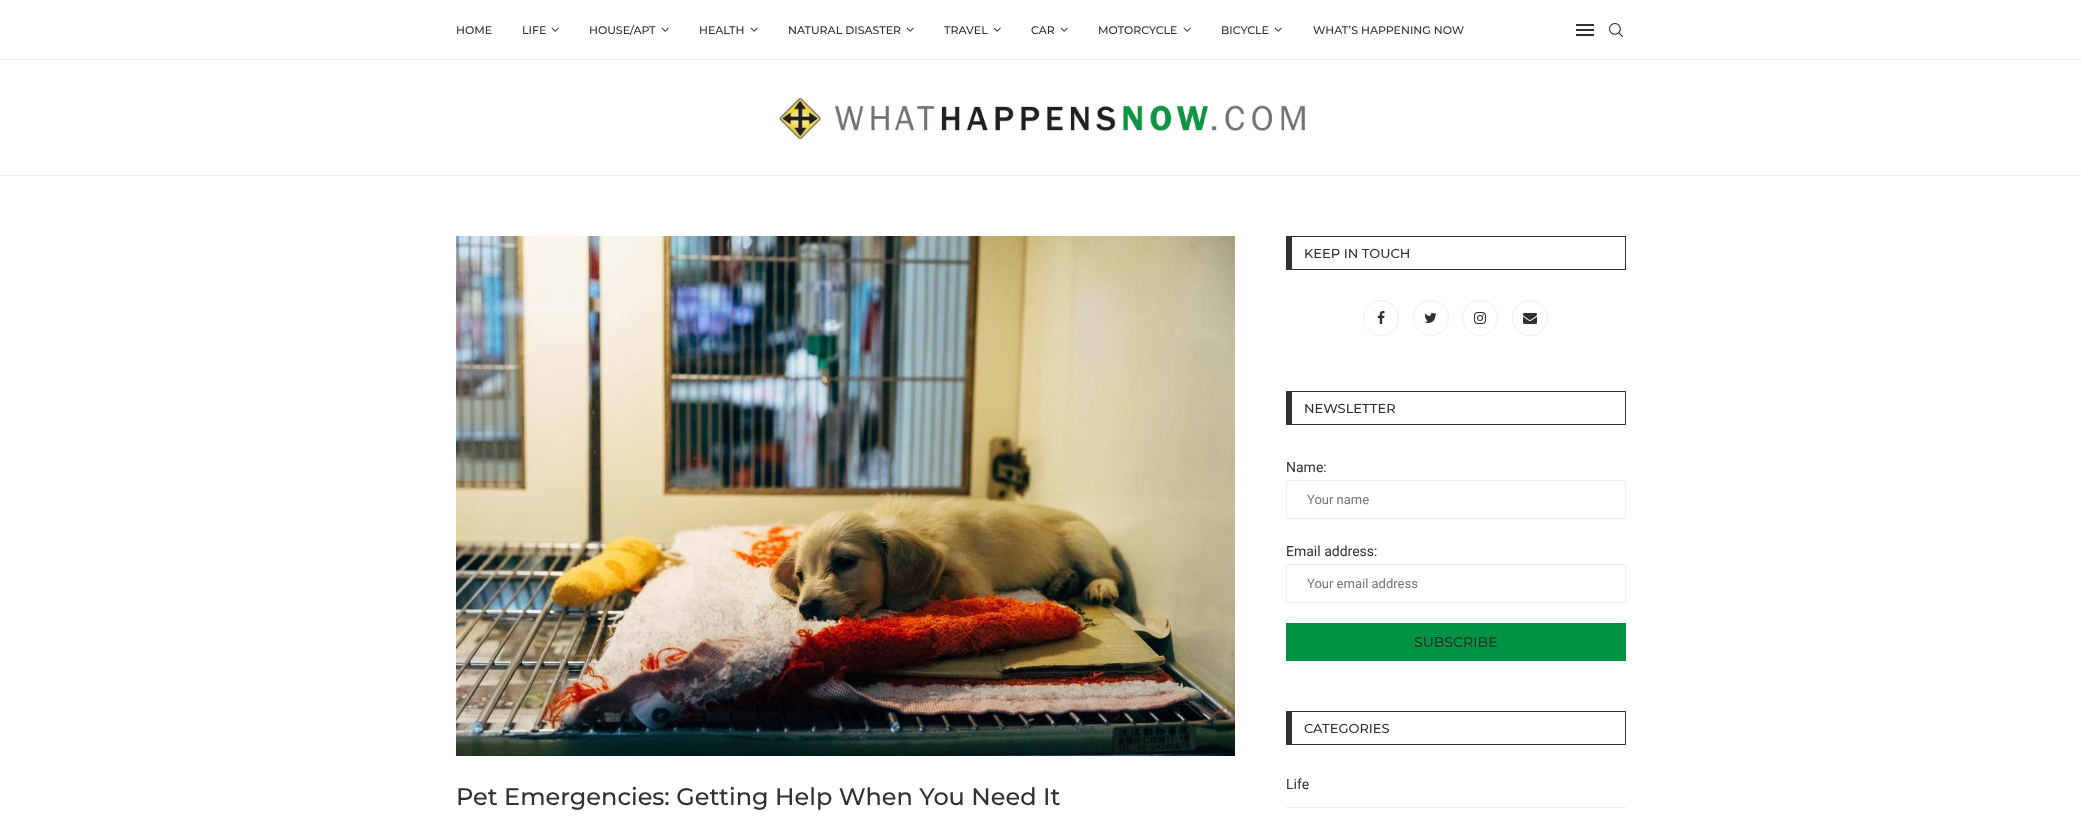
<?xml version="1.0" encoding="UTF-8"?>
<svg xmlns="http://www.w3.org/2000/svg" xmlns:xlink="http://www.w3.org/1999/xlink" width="2081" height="821">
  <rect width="100%" height="100%" fill="#ffffff" />
  <rect y="59" width="2081" height="1" fill="#ececec" />
  <image x="551" y="27" width="8" height="5" xlink:href="image1.png" />
  <image x="661" y="27" width="8" height="5" xlink:href="image1.png" />
  <image x="750" y="27" width="8" height="5" xlink:href="image1.png" />
  <image x="906" y="27" width="8" height="5" xlink:href="image1.png" />
  <image x="993" y="27" width="8" height="5" xlink:href="image1.png" />
  <image x="1060" y="27" width="8" height="5" xlink:href="image1.png" />
  <image x="1183" y="27" width="8" height="5" xlink:href="image1.png" />
  <image x="1274" y="27" width="8" height="5" xlink:href="image1.png" />
  <rect x="1576" y="24" width="18" height="2" fill="#313131" />
  <rect x="1576" y="34" width="18" height="2" fill="#313131" />
  <rect x="1576" y="29" width="18" height="2" fill="#313131" />
  <image x="1609" y="23" width="14" height="14" xlink:href="image2.png" />
  <rect y="175" width="2081" height="1" fill="#eeeeee" />
  <image x="779" y="98" width="526" height="42" xlink:href="image3.png" />
  <rect x="1286" y="236" width="340" height="1" fill="#313131" />
  <rect x="1625" y="236" width="1" height="34" fill="#313131" />
  <rect x="1286" y="269" width="340" height="1" fill="#313131" />
  <rect x="1286" y="236" width="6" height="34" fill="#313131" />
  <circle cx="1381" cy="318" r="17.5" fill="none" stroke="#eeeeee" />
  <image x="1377" y="311" width="8" height="13" xlink:href="image4.png" />
  <circle cx="1431" cy="318" r="17.5" fill="none" stroke="#eeeeee" />
  <image x="1424" y="313" width="13" height="10" xlink:href="image5.png" />
  <circle cx="1480" cy="318" r="17.5" fill="none" stroke="#eeeeee" />
  <image x="1474" y="312" width="12" height="12" xlink:href="image6.png" />
  <circle cx="1530" cy="318" r="17.5" fill="none" stroke="#eeeeee" />
  <image x="1523" y="313" width="14" height="11" xlink:href="image7.png" />
  <rect x="1286" y="391" width="340" height="1" fill="#313131" />
  <rect x="1625" y="391" width="1" height="34" fill="#313131" />
  <rect x="1286" y="424" width="340" height="1" fill="#313131" />
  <rect x="1286" y="391" width="6" height="34" fill="#313131" />
  <rect x="1286.5" y="480.5" width="339" height="38" fill="none" stroke="#eeeeee" />
  <rect x="1286.5" y="564.5" width="339" height="38" fill="none" stroke="#eeeeee" />
  <rect x="1286" y="623" width="340" height="38" fill="#009344" />
  <rect x="1286" y="711" width="340" height="1" fill="#313131" />
  <rect x="1625" y="711" width="1" height="34" fill="#313131" />
  <rect x="1286" y="744" width="340" height="1" fill="#313131" />
  <rect x="1286" y="711" width="6" height="34" fill="#313131" />
  <rect x="1286" y="807" width="340" height="1" fill="#eeeeee" />
  <image x="456" y="236" width="779" height="520" xlink:href="image8.png" />
  <text x="456" y="34" style="font-family: Montserrat; font-size: 11px; font-weight: 500; fill: #313131">HOME</text>
  <text x="522" y="34" style="font-family: Montserrat; font-size: 11px; font-weight: 500; fill: #313131">LIFE</text>
  <text x="589" y="34" style="font-family: Montserrat; font-size: 11px; font-weight: 500; fill: #313131">HOUSE/APT</text>
  <text x="699" y="34" style="font-family: Montserrat; font-size: 11px; font-weight: 500; fill: #313131">HEALTH</text>
  <text x="788" y="34" style="font-family: Montserrat; font-size: 11px; font-weight: 500; fill: #313131">NATURAL DISASTER</text>
  <text x="944" y="34" style="font-family: Montserrat; font-size: 11px; font-weight: 500; fill: #313131">TRAVEL</text>
  <text x="1031" y="34" style="font-family: Montserrat; font-size: 11px; font-weight: 500; fill: #313131">CAR</text>
  <text x="1098" y="34" style="font-family: Montserrat; font-size: 11px; font-weight: 500; fill: #313131">MOTORCYCLE</text>
  <text x="1221" y="34" style="font-family: Montserrat; font-size: 11px; font-weight: 500; fill: #313131">BICYCLE</text>
  <text x="1313" y="34" style="font-family: Montserrat; font-size: 11px; font-weight: 500; fill: #313131">WHAT’S HAPPENING NOW</text>
  <text x="1304" y="258" style="font-family: Montserrat; font-size: 13px; font-weight: 500; fill: #313131">KEEP IN TOUCH</text>
  <text x="1304" y="413" style="font-family: Montserrat; font-size: 13px; font-weight: 500; fill: #313131">NEWSLETTER</text>
  <text x="1286" y="472" style="font-family: Roboto; font-size: 14px; fill: #313131">Name:</text>
  <text x="1307" y="504" style="font-family: Roboto; font-size: 13px; fill: #757575">Your name</text>
  <text x="1286" y="556" style="font-family: Roboto; font-size: 14px; fill: #313131">Email address:</text>
  <text x="1307" y="588" style="font-family: Roboto; font-size: 13px; fill: #757575">Your email address</text>
  <text x="1414" y="647" style="font-family: Montserrat; font-size: 14px; font-weight: 500; fill: #313131">SUBSCRIBE</text>
  <text x="1304" y="733" style="font-family: Montserrat; font-size: 13px; font-weight: 500; fill: #313131">CATEGORIES</text>
  <text x="1286" y="789" style="font-family: Roboto; font-size: 14px; fill: #313131">Life</text>
  <text x="456" y="805" style="font-family: Montserrat; font-size: 24px; font-weight: 500; fill: #313131">Pet Emergencies: Getting Help When You Need It</text>
</svg>
